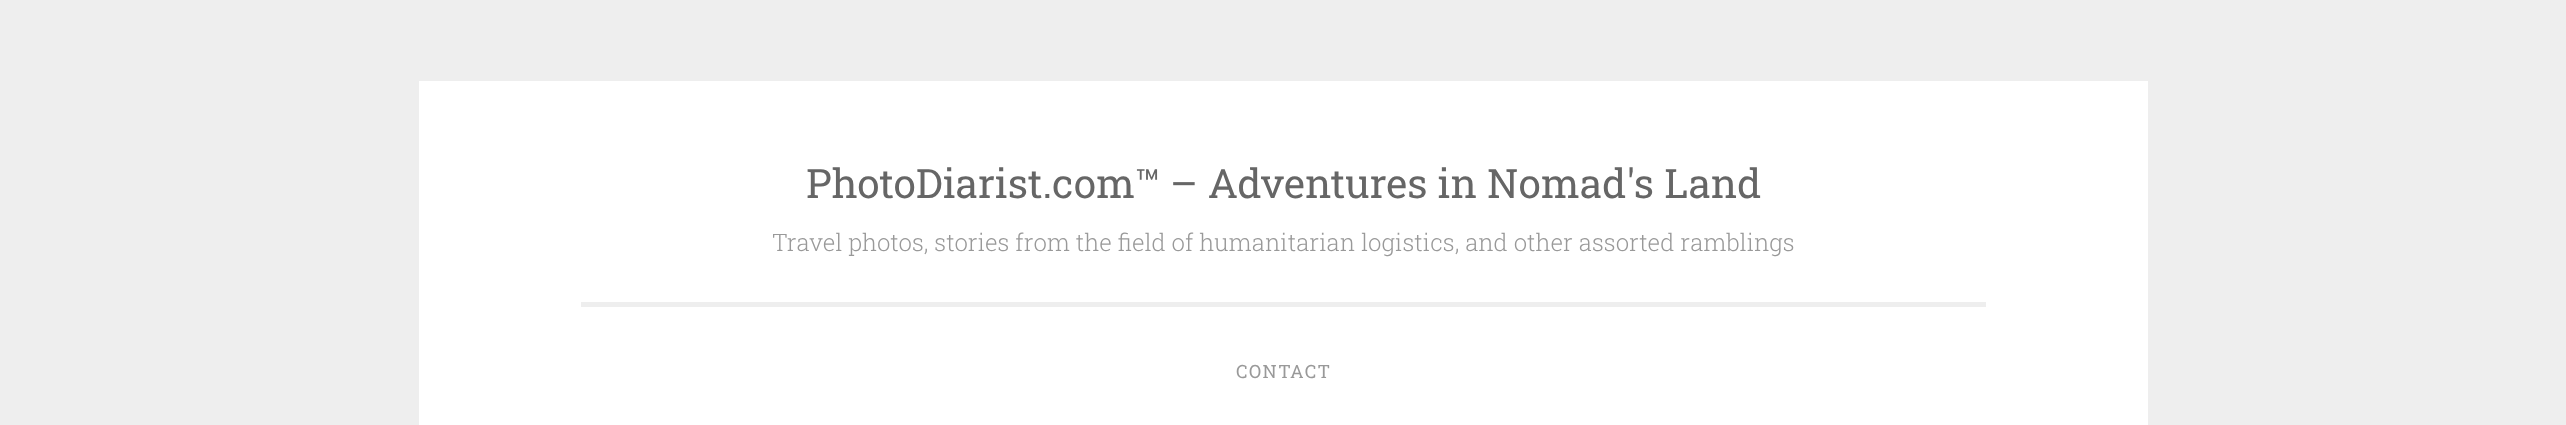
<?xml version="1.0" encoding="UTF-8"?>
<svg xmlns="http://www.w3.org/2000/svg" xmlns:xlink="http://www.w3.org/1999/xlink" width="2566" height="425">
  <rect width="100%" height="100%" fill="#eeeeee" />
  <rect x="419" y="81" width="1729" height="344" fill="#ffffff" />
  <rect x="581" y="302" width="1405" height="5" fill="#eeeeee" />
  <text x="806" y="198" style="font-family: Roboto Slab; font-size: 40.5px; fill: #666666">PhotoDiarist.com™ – Adventures in Nomad's Land</text>
  <text x="772" y="251" style="font-family: Roboto Slab; font-size: 24px; font-weight: 300; fill: #999999">Travel photos, stories from the field of humanitarian logistics, and other assorted ramblings</text>
  <text x="1236" y="378" style="font-family: Roboto Slab; font-size: 18.25px; letter-spacing: 1.5px; fill: #999999">CONTACT</text>
</svg>
